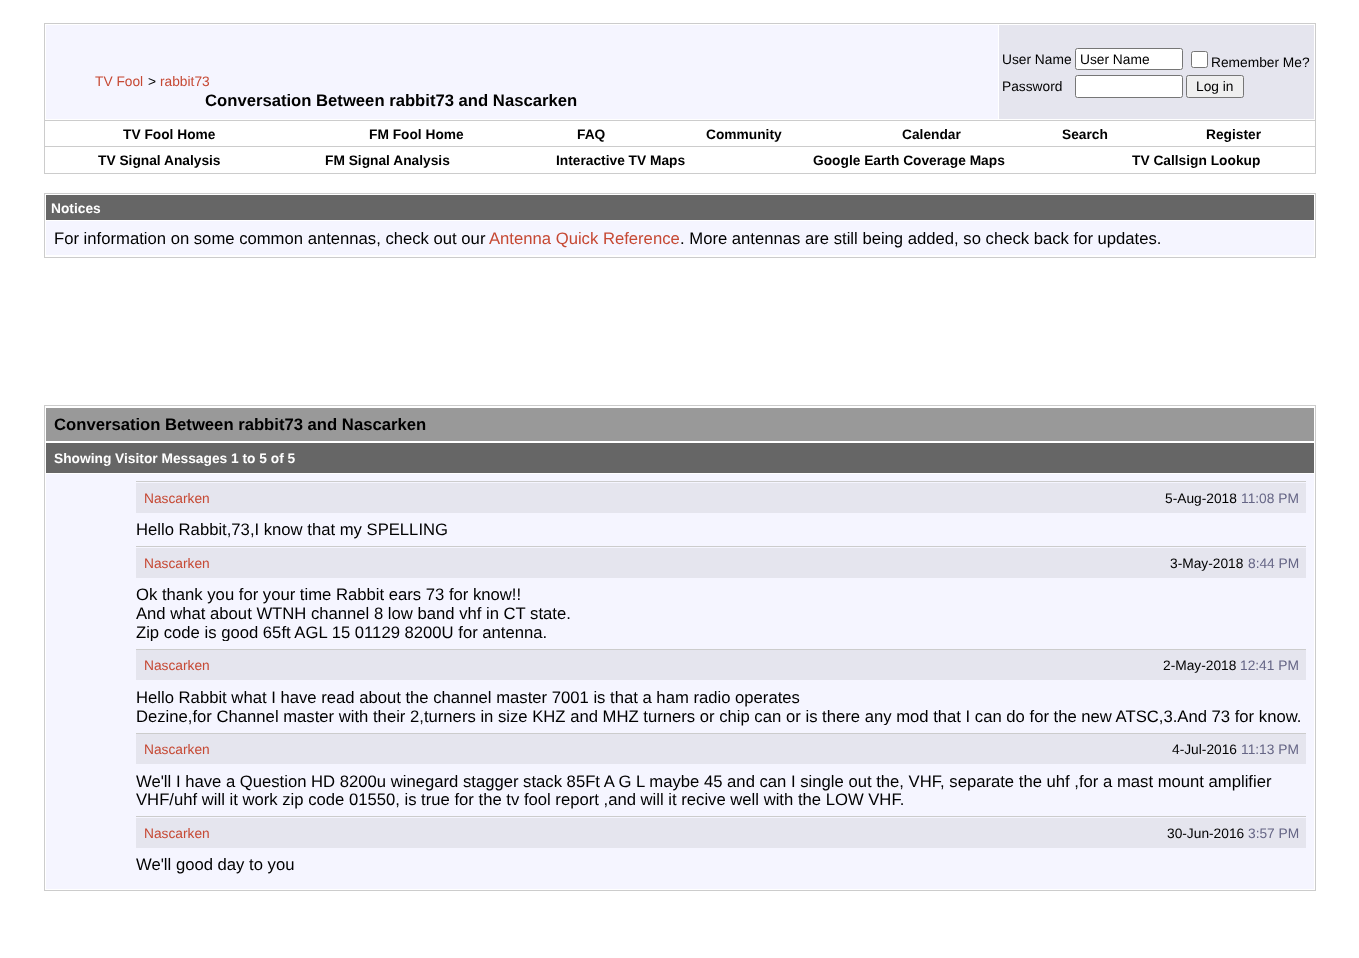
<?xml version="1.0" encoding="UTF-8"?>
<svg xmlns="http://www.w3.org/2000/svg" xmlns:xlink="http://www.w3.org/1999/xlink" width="1359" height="958">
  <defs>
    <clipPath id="clip1"><rect x="136" y="585" width="1170" height="56" /></clipPath>
    <clipPath id="clip2"><rect x="136" y="688" width="1170" height="37" /></clipPath>
  </defs>
  <rect width="100%" height="100%" fill="#ffffff" />
  <rect x="44.5" y="23.5" width="1271" height="97" fill="none" stroke="#cccccc" />
  <rect x="46" y="25" width="952" height="94" fill="#f5f5ff" />
  <rect x="999" y="25" width="315" height="94" fill="#e5e5ee" />
  <rect x="1075.5" y="48.5" width="107" height="21" rx="2" fill="#ffffff" stroke="#767676" />
  <rect x="1191.5" y="51.5" width="16" height="16" rx="2" fill="#ffffff" stroke="#767676" />
  <rect x="1075.5" y="75.5" width="107" height="22" rx="2" fill="#ffffff" stroke="#767676" />
  <rect x="1186.5" y="75.5" width="57" height="22" rx="2" fill="#efefef" stroke="#767676" />
  <rect x="1315" y="121" width="1" height="53" fill="#cccccc" />
  <rect x="44" y="146" width="1272" height="1" fill="#cccccc" />
  <rect x="44" y="121" width="1" height="27" fill="#cccccc" />
  <rect x="44" y="173" width="1272" height="1" fill="#cccccc" />
  <rect x="44" y="148" width="1" height="26" fill="#cccccc" />
  <rect x="44.5" y="193.5" width="1271" height="64" fill="none" stroke="#cccccc" />
  <rect x="46" y="195" width="1268" height="25" fill="#666666" />
  <rect x="46" y="221" width="1268" height="34" fill="#f5f5ff" />
  <rect x="44.5" y="405.5" width="1271" height="485" fill="none" stroke="#cccccc" />
  <rect x="46" y="408" width="1268" height="33" fill="#999999" />
  <rect x="46" y="443" width="1268" height="30" fill="#666666" />
  <rect x="46" y="474" width="1268" height="415" fill="#f5f5ff" />
  <rect x="136" y="481" width="1170" height="1" fill="#cccccc" />
  <rect x="136" y="483" width="1170" height="30" fill="#e5e5ee" />
  <rect x="136" y="546" width="1170" height="1" fill="#cccccc" />
  <rect x="136" y="548" width="1170" height="30" fill="#e5e5ee" />
  <rect x="136" y="649" width="1170" height="1" fill="#cccccc" />
  <rect x="136" y="650" width="1170" height="30" fill="#e5e5ee" />
  <rect x="136" y="733" width="1170" height="1" fill="#cccccc" />
  <rect x="136" y="734" width="1170" height="30" fill="#e5e5ee" />
  <rect x="136" y="816" width="1170" height="1" fill="#cccccc" />
  <rect x="136" y="818" width="1170" height="30" fill="#e5e5ee" />
  <text x="95" y="86" style="font-family: Liberation Sans; font-size: 13.75px; fill: #c64934">TV Fool</text>
  <text x="148" y="86" style="font-family: Liberation Sans; font-size: 13.75px; fill: #000000">&gt;</text>
  <text x="160" y="86" style="font-family: Liberation Sans; font-size: 13.75px; fill: #c64934">rabbit73</text>
  <text x="205" y="106" style="font-family: Liberation Sans; font-size: 16.67px; font-weight: bold; fill: #000000">Conversation Between rabbit73 and Nascarken</text>
  <text x="1002" y="64" style="font-family: Liberation Sans; font-size: 13.75px; fill: #000000">User Name</text>
  <text x="1080" y="64" style="font-family: Liberation Sans; font-size: 13.75px; fill: #000000">User Name</text>
  <text x="1211" y="67" style="font-family: Liberation Sans; font-size: 13.75px; fill: #000000">Remember Me?</text>
  <text x="1002" y="91" style="font-family: Liberation Sans; font-size: 13.75px; fill: #000000">Password</text>
  <text x="1196" y="91" style="font-family: Liberation Sans; font-size: 13.75px; fill: #000000">Log in</text>
  <text x="123" y="139" style="font-family: Liberation Sans; font-size: 13.75px; font-weight: bold; fill: #000000">TV Fool Home</text>
  <text x="369" y="139" style="font-family: Liberation Sans; font-size: 13.75px; font-weight: bold; fill: #000000">FM Fool Home</text>
  <text x="577" y="139" style="font-family: Liberation Sans; font-size: 13.75px; font-weight: bold; fill: #000000">FAQ</text>
  <text x="706" y="139" style="font-family: Liberation Sans; font-size: 13.75px; font-weight: bold; fill: #000000">Community</text>
  <text x="902" y="139" style="font-family: Liberation Sans; font-size: 13.75px; font-weight: bold; fill: #000000">Calendar</text>
  <text x="1062" y="139" style="font-family: Liberation Sans; font-size: 13.75px; font-weight: bold; fill: #000000">Search</text>
  <text x="1206" y="139" style="font-family: Liberation Sans; font-size: 13.75px; font-weight: bold; fill: #000000">Register</text>
  <text x="98" y="165" style="font-family: Liberation Sans; font-size: 13.75px; font-weight: bold; fill: #000000">TV Signal Analysis</text>
  <text x="325" y="165" style="font-family: Liberation Sans; font-size: 13.75px; font-weight: bold; fill: #000000">FM Signal Analysis</text>
  <text x="556" y="165" style="font-family: Liberation Sans; font-size: 13.75px; font-weight: bold; fill: #000000">Interactive TV Maps</text>
  <text x="813" y="165" style="font-family: Liberation Sans; font-size: 13.75px; font-weight: bold; fill: #000000">Google Earth Coverage Maps</text>
  <text x="1132" y="165" style="font-family: Liberation Sans; font-size: 13.75px; font-weight: bold; fill: #000000">TV Callsign Lookup</text>
  <text x="51" y="213" style="font-family: Liberation Sans; font-size: 13.75px; font-weight: bold; fill: #ffffff">Notices</text>
  <text x="54" y="244" style="font-family: Liberation Sans; font-size: 16.67px; fill: #000000">For information on some common antennas, check out our</text>
  <text x="489" y="244" style="font-family: Liberation Sans; font-size: 16.67px; fill: #c64934">Antenna Quick Reference</text>
  <text x="680" y="244" style="font-family: Liberation Sans; font-size: 16.67px; fill: #000000">. More antennas are still being added, so check back for updates.</text>
  <text x="54" y="430" style="font-family: Liberation Sans; font-size: 16.67px; font-weight: bold; fill: #000000">Conversation Between rabbit73 and Nascarken</text>
  <text x="54" y="463" style="font-family: Liberation Sans; font-size: 13.75px; font-weight: bold; fill: #ffffff">Showing Visitor Messages 1 to 5 of 5</text>
  <text x="144" y="503" style="font-family: Liberation Sans; font-size: 13.75px; fill: #c64934">Nascarken</text>
  <text x="1165" y="503" style="font-family: Liberation Sans; font-size: 13.75px; fill: #000000">5-Aug-2018</text>
  <text x="1241" y="503" style="font-family: Liberation Sans; font-size: 13.75px; fill: #666686">11:08 PM</text>
  <text x="136" y="535" style="font-family: Liberation Sans; font-size: 16.67px; fill: #000000">Hello Rabbit,73,I know that my SPELLING</text>
  <text x="144" y="568" style="font-family: Liberation Sans; font-size: 13.75px; fill: #c64934">Nascarken</text>
  <text x="1170" y="568" style="font-family: Liberation Sans; font-size: 13.75px; fill: #000000">3-May-2018</text>
  <text x="1248" y="568" style="font-family: Liberation Sans; font-size: 13.75px; fill: #666686">8:44 PM</text>
  <text x="136" y="600" style="font-family: Liberation Sans; font-size: 16.67px; fill: #000000">Ok thank you for your time Rabbit ears 73 for know!!</text>
  <text x="136" y="619" style="font-family: Liberation Sans; font-size: 16.67px; fill: #000000">And what about WTNH channel 8 low band vhf in CT state.</text>
  <g clip-path="url(#clip1)">
    <text x="136" y="638" style="font-family: Liberation Sans; font-size: 16.67px; fill: #000000">Zip code is good 65ft AGL 15 01129 8200U for antenna.</text>
  </g>
  <text x="144" y="670" style="font-family: Liberation Sans; font-size: 13.75px; fill: #c64934">Nascarken</text>
  <text x="1163" y="670" style="font-family: Liberation Sans; font-size: 13.75px; fill: #000000">2-May-2018</text>
  <text x="1240" y="670" style="font-family: Liberation Sans; font-size: 13.75px; fill: #666686">12:41 PM</text>
  <text x="136" y="703" style="font-family: Liberation Sans; font-size: 16.67px; fill: #000000">Hello Rabbit what I have read about the channel master 7001 is that a ham radio operates</text>
  <text x="136" y="722" style="font-family: Liberation Sans; font-size: 16.67px; fill: #000000">Dezine,for Channel master with their 2,turners in size KHZ and MHZ turners or chip can</text>
  <g clip-path="url(#clip2)">
    <text x="786" y="722" style="font-family: Liberation Sans; font-size: 16.67px; fill: #000000">or is there any mod that I can do for the new ATSC,3.And 73 for know.</text>
  </g>
  <text x="144" y="754" style="font-family: Liberation Sans; font-size: 13.75px; fill: #c64934">Nascarken</text>
  <text x="1172" y="754" style="font-family: Liberation Sans; font-size: 13.75px; fill: #000000">4-Jul-2016</text>
  <text x="1241" y="754" style="font-family: Liberation Sans; font-size: 13.75px; fill: #666686">11:13 PM</text>
  <text x="136" y="787" style="font-family: Liberation Sans; font-size: 16.67px; fill: #000000">We'll I have a Question HD 8200u winegard stagger stack 85Ft A G L maybe 45 and can I single out the, VHF, separate the uhf ,for a mast mount amplifier</text>
  <text x="136" y="805" style="font-family: Liberation Sans; font-size: 16.67px; fill: #000000">VHF/uhf will it work zip code 01550, is true for the tv fool report ,and will it recive well with the LOW VHF.</text>
  <text x="144" y="838" style="font-family: Liberation Sans; font-size: 13.75px; fill: #c64934">Nascarken</text>
  <text x="1167" y="838" style="font-family: Liberation Sans; font-size: 13.75px; fill: #000000">30-Jun-2016</text>
  <text x="1248" y="838" style="font-family: Liberation Sans; font-size: 13.75px; fill: #666686">3:57 PM</text>
  <text x="136" y="870" style="font-family: Liberation Sans; font-size: 16.67px; fill: #000000">We'll good day to you</text>
</svg>
